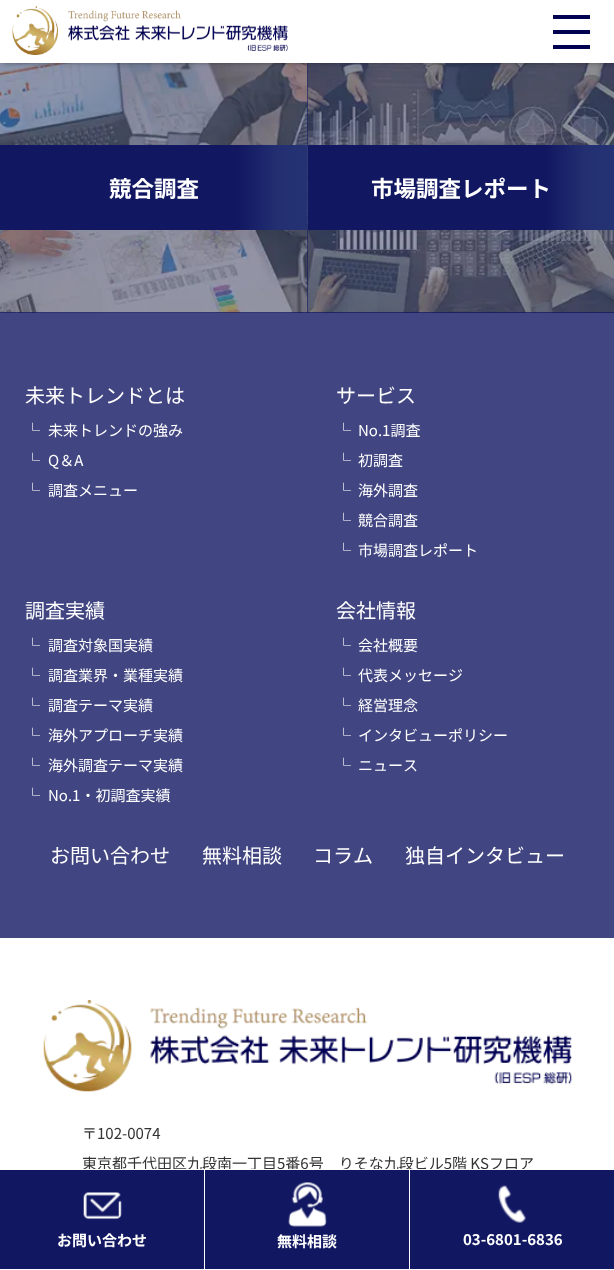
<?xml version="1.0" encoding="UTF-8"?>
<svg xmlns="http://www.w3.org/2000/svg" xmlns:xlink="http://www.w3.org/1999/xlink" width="614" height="1270">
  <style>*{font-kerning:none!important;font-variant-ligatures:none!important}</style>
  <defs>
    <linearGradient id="g1" gradientUnits="userSpaceOnUse" x1="0" y1="188" x2="308" y2="188"><stop offset="0" stop-color="#111761" /><stop offset="0.77" stop-color="#111761" /><stop offset="0.9" stop-color="#232f71" /><stop offset="0.99" stop-color="#243273" /></linearGradient>
    <linearGradient id="g2" gradientUnits="userSpaceOnUse" x1="308" y1="188" x2="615" y2="188"><stop offset="0" stop-color="#111761" /><stop offset="0.77" stop-color="#111761" /><stop offset="0.9" stop-color="#232f71" /><stop offset="0.99" stop-color="#243273" /></linearGradient>
  </defs>
  <rect width="100%" height="100%" fill="#ffffff" />
  <rect y="63" width="614" height="250" fill="#111761" />
  <image x="0" y="63" width="308" height="250" xlink:href="image2.png" />
  <rect y="145" width="308" height="85" fill="url(#g1)" />
  <image x="307" y="63" width="307" height="250" xlink:href="image3.png" />
  <rect x="4" width="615" height="63" fill="#000000" fill-opacity="0.2" filter="blur(2px)" />
  <rect x="4" width="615" height="63" fill="#000000" fill-opacity="0.2" filter="blur(2px)" />
  <rect width="614" height="63" fill="#ffffff" />
  <image x="12" y="6" width="276" height="49" xlink:href="image1.png" />
  <rect x="553" y="15" width="37" height="4" fill="#000053" />
  <rect x="553" y="30" width="37" height="4" fill="#000053" />
  <rect x="553" y="45" width="37" height="4" fill="#000053" />
  <rect y="313" width="614" height="625" fill="#414581" />
  <rect x="308" y="145" width="306" height="85" fill="url(#g2)" />
  <image x="43" y="1000" width="529" height="92" xlink:href="image4.png" />
  <text x="109" y="197" style="font-family: Noto Sans JP; font-size: 22.5px; font-weight: bold; fill: #ffffff">競合調査</text>
  <text x="371" y="197" style="font-family: Noto Sans JP; font-size: 22.5px; font-weight: bold; fill: #ffffff">市場調査レポート</text>
  <text x="25" y="403" style="font-family: Noto Sans JP; font-size: 20px; fill: #ffffff">未来トレンドとは</text>
  <text x="25" y="436" style="font-family: Noto Sans JP; font-size: 15px; fill: #ffffff">└</text>
  <text x="48" y="436" style="font-family: Noto Sans JP; font-size: 15px; fill: #ffffff">未来トレンドの強み</text>
  <text x="25" y="466" style="font-family: Noto Sans JP; font-size: 15px; fill: #ffffff">└</text>
  <text x="48" y="466" style="font-family: Noto Sans JP; font-size: 15px; fill: #ffffff">Q＆A</text>
  <text x="25" y="496" style="font-family: Noto Sans JP; font-size: 15px; fill: #ffffff">└</text>
  <text x="48" y="496" style="font-family: Noto Sans JP; font-size: 15px; fill: #ffffff">調査メニュー</text>
  <text x="336" y="403" style="font-family: Noto Sans JP; font-size: 20px; fill: #ffffff">サービス</text>
  <text x="336" y="436" style="font-family: Noto Sans JP; font-size: 15px; fill: #ffffff">└</text>
  <text x="358" y="436" style="font-family: Noto Sans JP; font-size: 15px; fill: #ffffff">No.1調査</text>
  <text x="336" y="466" style="font-family: Noto Sans JP; font-size: 15px; fill: #ffffff">└</text>
  <text x="358" y="466" style="font-family: Noto Sans JP; font-size: 15px; fill: #ffffff">初調査</text>
  <text x="336" y="496" style="font-family: Noto Sans JP; font-size: 15px; fill: #ffffff">└</text>
  <text x="358" y="496" style="font-family: Noto Sans JP; font-size: 15px; fill: #ffffff">海外調査</text>
  <text x="336" y="526" style="font-family: Noto Sans JP; font-size: 15px; fill: #ffffff">└</text>
  <text x="358" y="526" style="font-family: Noto Sans JP; font-size: 15px; fill: #ffffff">競合調査</text>
  <text x="336" y="556" style="font-family: Noto Sans JP; font-size: 15px; fill: #ffffff">└</text>
  <text x="358" y="556" style="font-family: Noto Sans JP; font-size: 15px; fill: #ffffff">市場調査レポート</text>
  <text x="25" y="618" style="font-family: Noto Sans JP; font-size: 20px; fill: #ffffff">調査実績</text>
  <text x="25" y="651" style="font-family: Noto Sans JP; font-size: 15px; fill: #ffffff">└</text>
  <text x="48" y="651" style="font-family: Noto Sans JP; font-size: 15px; fill: #ffffff">調査対象国実績</text>
  <text x="25" y="681" style="font-family: Noto Sans JP; font-size: 15px; fill: #ffffff">└</text>
  <text x="48" y="681" style="font-family: Noto Sans JP; font-size: 15px; fill: #ffffff">調査業界・業種実績</text>
  <text x="25" y="711" style="font-family: Noto Sans JP; font-size: 15px; fill: #ffffff">└</text>
  <text x="48" y="711" style="font-family: Noto Sans JP; font-size: 15px; fill: #ffffff">調査テーマ実績</text>
  <text x="25" y="741" style="font-family: Noto Sans JP; font-size: 15px; fill: #ffffff">└</text>
  <text x="48" y="741" style="font-family: Noto Sans JP; font-size: 15px; fill: #ffffff">海外アプローチ実績</text>
  <text x="25" y="771" style="font-family: Noto Sans JP; font-size: 15px; fill: #ffffff">└</text>
  <text x="48" y="771" style="font-family: Noto Sans JP; font-size: 15px; fill: #ffffff">海外調査テーマ実績</text>
  <text x="25" y="801" style="font-family: Noto Sans JP; font-size: 15px; fill: #ffffff">└</text>
  <text x="48" y="801" style="font-family: Noto Sans JP; font-size: 15px; fill: #ffffff">No.1・初調査実績</text>
  <text x="336" y="618" style="font-family: Noto Sans JP; font-size: 20px; fill: #ffffff">会社情報</text>
  <text x="336" y="651" style="font-family: Noto Sans JP; font-size: 15px; fill: #ffffff">└</text>
  <text x="358" y="651" style="font-family: Noto Sans JP; font-size: 15px; fill: #ffffff">会社概要</text>
  <text x="336" y="681" style="font-family: Noto Sans JP; font-size: 15px; fill: #ffffff">└</text>
  <text x="358" y="681" style="font-family: Noto Sans JP; font-size: 15px; fill: #ffffff">代表メッセージ</text>
  <text x="336" y="711" style="font-family: Noto Sans JP; font-size: 15px; fill: #ffffff">└</text>
  <text x="358" y="711" style="font-family: Noto Sans JP; font-size: 15px; fill: #ffffff">経営理念</text>
  <text x="336" y="741" style="font-family: Noto Sans JP; font-size: 15px; fill: #ffffff">└</text>
  <text x="358" y="741" style="font-family: Noto Sans JP; font-size: 15px; fill: #ffffff">インタビューポリシー</text>
  <text x="336" y="771" style="font-family: Noto Sans JP; font-size: 15px; fill: #ffffff">└</text>
  <text x="358" y="771" style="font-family: Noto Sans JP; font-size: 15px; fill: #ffffff">ニュース</text>
  <text x="50" y="863" style="font-family: Noto Sans JP; font-size: 20px; fill: #ffffff">お問い合わせ</text>
  <text x="202" y="863" style="font-family: Noto Sans JP; font-size: 20px; fill: #ffffff">無料相談</text>
  <text x="313" y="863" style="font-family: Noto Sans JP; font-size: 20px; fill: #ffffff">コラム</text>
  <text x="405" y="863" style="font-family: Noto Sans JP; font-size: 20px; fill: #ffffff">独自インタビュー</text>
  <text x="82" y="1139" style="font-family: Noto Sans JP; font-size: 15px; fill: #333333">〒102-0074</text>
  <text x="82" y="1169" style="font-family: Noto Sans JP; font-size: 15px; fill: #333333">東京都千代田区九段南一丁目5番6号　りそな九段ビル5階 KSフロア</text>
  <rect y="1170" width="614" height="99" fill="#111761" />
  <rect x="82" y="1169" width="442" height="1" fill="#ffffff" />
  <rect x="204" y="1169" width="1" height="101" fill="#ffffff" />
  <image x="83" y="1192" width="39" height="28" xlink:href="image5.png" />
  <text x="57" y="1246" style="font-family: Noto Sans JP; font-size: 15px; font-weight: bold; fill: #ffffff">お問い合わせ</text>
  <rect x="409" y="1169" width="1" height="101" fill="#ffffff" />
  <image x="288" y="1182" width="39" height="45" xlink:href="image6.png" />
  <text x="277" y="1247" style="font-family: Noto Sans JP; font-size: 15px; font-weight: bold; fill: #ffffff">無料相談</text>
  <image x="498" y="1185" width="28" height="38" xlink:href="image7.png" />
  <text x="463" y="1245" style="font-family: Noto Sans JP; font-size: 15px; font-weight: bold; fill: #ffffff">03-6801-6836</text>
</svg>
